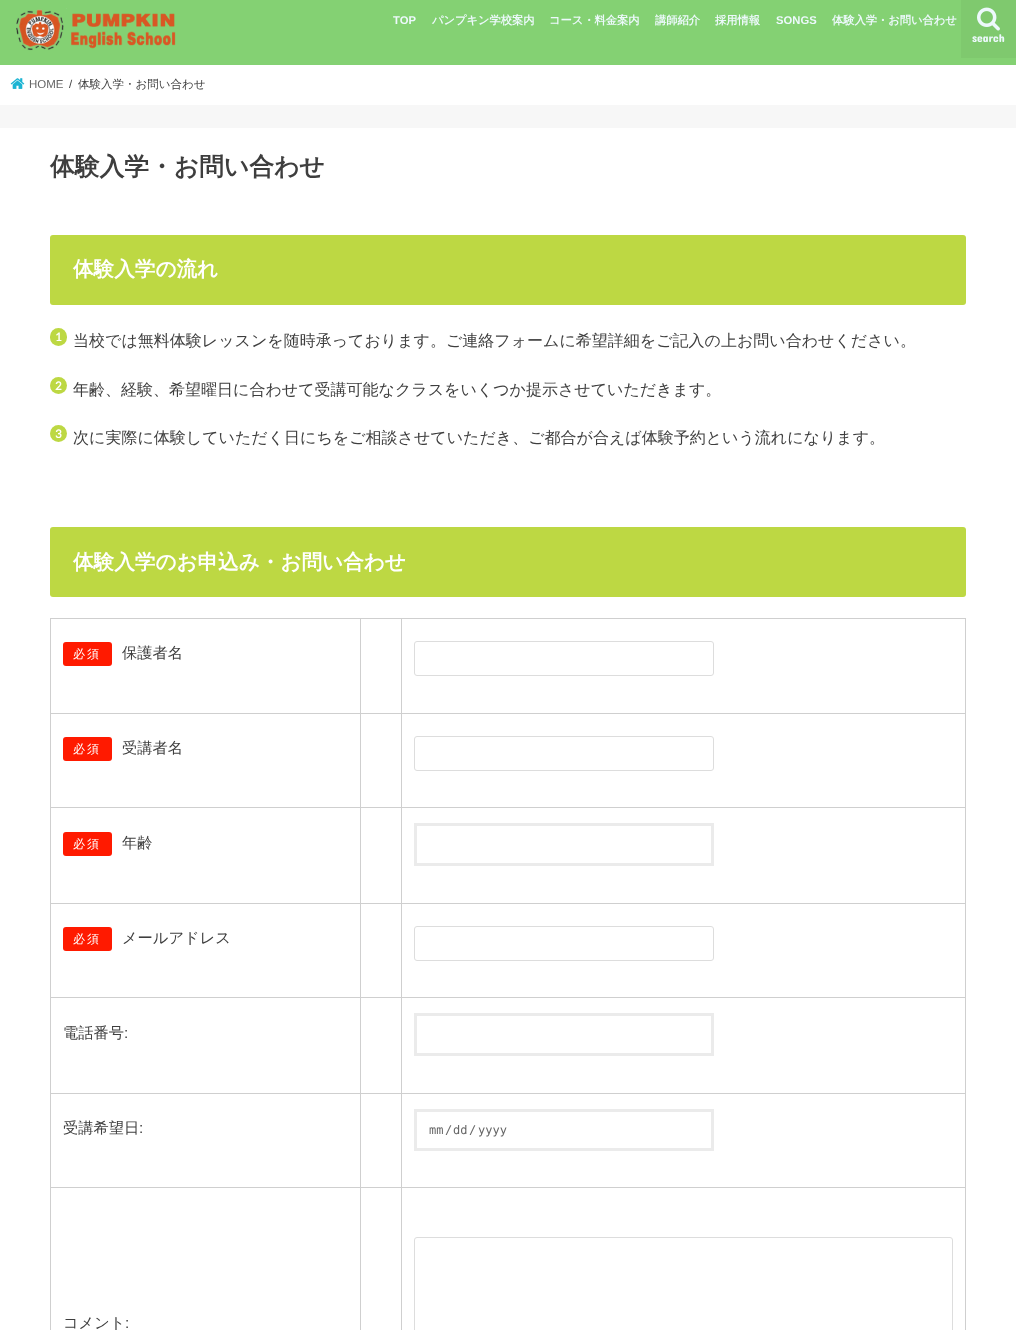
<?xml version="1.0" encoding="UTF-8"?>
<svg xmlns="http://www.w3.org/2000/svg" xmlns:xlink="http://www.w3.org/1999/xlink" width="1016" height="1330">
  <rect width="100%" height="100%" fill="#f7f7f7" />
  <rect y="65" width="1016" height="40" fill="#dddddd" filter="blur(0.5px)" />
  <rect width="1016" height="65" fill="#84d173" />
  <image x="16" y="8" width="160" height="43" xlink:href="image1.png" />
  <rect x="961" width="55" height="58" fill="#7fc96e" />
  <image x="977" y="7" width="23" height="24" xlink:href="image2.png" />
  <rect y="65" width="1016" height="40" fill="#ffffff" />
  <image x="10" y="78" width="15" height="11" xlink:href="image3.png" />
  <rect y="128" width="1016" height="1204" fill="#dddddd" filter="blur(0.5px)" />
  <rect y="128" width="1016" height="1202" fill="#ffffff" />
  <rect x="50" y="235" width="916" height="70" rx="3" fill="#bdd843" />
  <rect x="50" y="328" width="17" height="18" rx="8.5" fill="#bdd843" />
  <circle cx="58.5" cy="385.5" r="8.5" fill="#bdd843" />
  <circle cx="58.5" cy="433.5" r="8.5" fill="#bdd843" />
  <rect x="50" y="527" width="916" height="70" rx="3" fill="#bdd843" />
  <rect x="401" y="618" width="565" height="1" fill="#cfcfcf" />
  <rect x="401" y="713" width="565" height="1" fill="#cfcfcf" />
  <rect x="401" y="807" width="565" height="1" fill="#cfcfcf" />
  <rect x="401" y="903" width="565" height="1" fill="#cfcfcf" />
  <rect x="401" y="997" width="565" height="1" fill="#cfcfcf" />
  <rect x="401" y="1093" width="565" height="1" fill="#cfcfcf" />
  <rect x="401" y="1187" width="565" height="1" fill="#cfcfcf" />
  <rect x="401" y="1187" width="1" height="143" fill="#cfcfcf" />
  <rect x="360" y="1187" width="42" height="1" fill="#cfcfcf" />
  <rect x="401" y="1093" width="1" height="95" fill="#cfcfcf" />
  <rect x="360" y="1093" width="42" height="1" fill="#cfcfcf" />
  <rect x="401" y="997" width="1" height="97" fill="#cfcfcf" />
  <rect x="360" y="997" width="42" height="1" fill="#cfcfcf" />
  <rect x="401" y="903" width="1" height="95" fill="#cfcfcf" />
  <rect x="360" y="903" width="42" height="1" fill="#cfcfcf" />
  <rect x="401" y="807" width="1" height="97" fill="#cfcfcf" />
  <rect x="360" y="807" width="42" height="1" fill="#cfcfcf" />
  <rect x="401" y="713" width="1" height="95" fill="#cfcfcf" />
  <rect x="360" y="713" width="42" height="1" fill="#cfcfcf" />
  <rect x="401" y="618" width="1" height="96" fill="#cfcfcf" />
  <rect x="360" y="618" width="42" height="1" fill="#cfcfcf" />
  <rect x="360" y="1187" width="1" height="143" fill="#cfcfcf" />
  <rect x="50" y="1187" width="311" height="1" fill="#cfcfcf" />
  <rect x="360" y="1093" width="1" height="95" fill="#cfcfcf" />
  <rect x="50" y="1093" width="311" height="1" fill="#cfcfcf" />
  <rect x="360" y="997" width="1" height="97" fill="#cfcfcf" />
  <rect x="50" y="997" width="311" height="1" fill="#cfcfcf" />
  <rect x="360" y="903" width="1" height="95" fill="#cfcfcf" />
  <rect x="50" y="903" width="311" height="1" fill="#cfcfcf" />
  <rect x="360" y="807" width="1" height="97" fill="#cfcfcf" />
  <rect x="50" y="807" width="311" height="1" fill="#cfcfcf" />
  <rect x="360" y="713" width="1" height="95" fill="#cfcfcf" />
  <rect x="50" y="713" width="311" height="1" fill="#cfcfcf" />
  <rect x="360" y="618" width="1" height="96" fill="#cfcfcf" />
  <rect x="50" y="618" width="311" height="1" fill="#cfcfcf" />
  <rect x="50" y="1187" width="1" height="143" fill="#cfcfcf" />
  <rect x="50" y="1093" width="1" height="95" fill="#cfcfcf" />
  <rect x="50" y="997" width="1" height="97" fill="#cfcfcf" />
  <rect x="50" y="903" width="1" height="95" fill="#cfcfcf" />
  <rect x="50" y="807" width="1" height="97" fill="#cfcfcf" />
  <rect x="50" y="713" width="1" height="95" fill="#cfcfcf" />
  <rect x="50" y="618" width="1" height="96" fill="#cfcfcf" />
  <rect x="63" y="642" width="49" height="24" rx="3" fill="#ff1a00" />
  <rect x="965" y="1187" width="1" height="143" fill="#cfcfcf" />
  <rect x="965" y="1093" width="1" height="95" fill="#cfcfcf" />
  <rect x="965" y="997" width="1" height="97" fill="#cfcfcf" />
  <rect x="965" y="903" width="1" height="95" fill="#cfcfcf" />
  <rect x="965" y="807" width="1" height="97" fill="#cfcfcf" />
  <rect x="965" y="713" width="1" height="95" fill="#cfcfcf" />
  <rect x="965" y="618" width="1" height="96" fill="#cfcfcf" />
  <rect x="414.5" y="641.5" width="299" height="34" rx="2.5" fill="none" stroke="#dddddd" />
  <rect x="63" y="737" width="49" height="24" rx="3" fill="#ff1a00" />
  <rect x="414.5" y="736.5" width="299" height="34" rx="2.5" fill="none" stroke="#dddddd" />
  <rect x="63" y="832" width="49" height="24" rx="3" fill="#ff1a00" />
  <path d="M 415.5 824.5 h 297 v 40 h -297 z" fill="none" stroke="#ebebeb" stroke-width="3" />
  <rect x="63" y="927" width="49" height="24" rx="3" fill="#ff1a00" />
  <rect x="414.5" y="926.5" width="299" height="34" rx="2.5" fill="none" stroke="#dddddd" />
  <path d="M 415.5 1014.5 h 297 v 40 h -297 z" fill="none" stroke="#ebebeb" stroke-width="3" />
  <path d="M 415.5 1110.5 h 297 v 39 h -297 z" fill="none" stroke="#ebebeb" stroke-width="3" />
  <rect x="414.5" y="1237.5" width="538" height="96" rx="2.5" fill="none" stroke="#dddddd" />
  <text x="393" y="24" style="font-family: Liberation Sans; font-size: 11.25px; font-weight: bold; fill: #edf9fc">TOP</text>
  <text x="432" y="24" style="font-family: WenQuanYi Zen Hei; font-size: 11.25px; font-weight: bold; fill: #edf9fc">パンプキン学校案内</text>
  <text x="549" y="24" style="font-family: WenQuanYi Zen Hei; font-size: 11.25px; font-weight: bold; fill: #edf9fc">コース・料金案内</text>
  <text x="655" y="24" style="font-family: WenQuanYi Zen Hei; font-size: 11.25px; font-weight: bold; fill: #edf9fc">講師紹介</text>
  <text x="715" y="24" style="font-family: WenQuanYi Zen Hei; font-size: 11.25px; font-weight: bold; fill: #edf9fc">採用情報</text>
  <text x="776" y="24" style="font-family: Liberation Sans; font-size: 11.25px; font-weight: bold; fill: #edf9fc">SONGS</text>
  <text x="832" y="24" style="font-family: WenQuanYi Zen Hei; font-size: 11.25px; font-weight: bold; fill: #edf9fc">体験入学・お問い合わせ</text>
  <text x="972" y="42" style="font-family: Concert One; font-size: 11.5px; fill: #edf9fc">search</text>
  <text x="29" y="88" style="font-family: Liberation Sans; font-size: 11.5px; fill: #666666">HOME</text>
  <text x="69" y="88" style="font-family: Liberation Sans; font-size: 11.5px; fill: #3e3e3e">/</text>
  <text x="78" y="88" style="font-family: WenQuanYi Zen Hei; font-size: 11.5px; font-weight: 500; fill: #3e3e3e">体験入学・お問い合わせ</text>
  <text x="50" y="175" style="font-family: WenQuanYi Zen Hei; font-size: 24.75px; font-weight: bold; fill: #3e3e3e">体験入学・お問い合わせ</text>
  <text x="73" y="276" style="font-family: WenQuanYi Zen Hei; font-size: 20.6px; font-weight: bold; fill: #ffffff">体験入学の流れ</text>
  <text x="55" y="341" style="font-family: Lato; font-size: 11.5px; font-weight: bold; fill: #ffffff">1</text>
  <text x="73" y="346" style="font-family: WenQuanYi Zen Hei; font-size: 16px; font-weight: 500; fill: #3e3e3e">当校では無料体験レッスンを随時承っております。ご連絡フォームに希望詳細をご記入の上お問い合わせください。</text>
  <text x="55" y="390" style="font-family: Lato; font-size: 11.5px; font-weight: bold; fill: #ffffff">2</text>
  <text x="73" y="395" style="font-family: WenQuanYi Zen Hei; font-size: 16px; font-weight: 500; fill: #3e3e3e">年齢、経験、希望曜日に合わせて受講可能なクラスをいくつか提示させていただきます。</text>
  <text x="55" y="438" style="font-family: Lato; font-size: 11.5px; font-weight: bold; fill: #ffffff">3</text>
  <text x="73" y="443" style="font-family: WenQuanYi Zen Hei; font-size: 16px; font-weight: 500; fill: #3e3e3e">次に実際に体験していただく日にちをご相談させていただき、ご都合が合えば体験予約という流れになります。</text>
  <text x="73" y="569" style="font-family: WenQuanYi Zen Hei; font-size: 20.6px; font-weight: bold; fill: #ffffff">体験入学のお申込み・お問い合わせ</text>
  <text x="73" y="658" style="font-family: WenQuanYi Zen Hei; font-size: 12px; font-weight: 500; letter-spacing: 2px; fill: #ffffff">必須</text>
  <text x="122" y="658" style="font-family: WenQuanYi Zen Hei; font-size: 15.25px; font-weight: 500; fill: #3e3e3e">保護者名</text>
  <text x="73" y="753" style="font-family: WenQuanYi Zen Hei; font-size: 12px; font-weight: 500; letter-spacing: 2px; fill: #ffffff">必須</text>
  <text x="122" y="753" style="font-family: WenQuanYi Zen Hei; font-size: 15.25px; font-weight: 500; fill: #3e3e3e">受講者名</text>
  <text x="73" y="848" style="font-family: WenQuanYi Zen Hei; font-size: 12px; font-weight: 500; letter-spacing: 2px; fill: #ffffff">必須</text>
  <text x="122" y="848" style="font-family: WenQuanYi Zen Hei; font-size: 15.25px; font-weight: 500; fill: #3e3e3e">年齢</text>
  <text x="73" y="943" style="font-family: WenQuanYi Zen Hei; font-size: 12px; font-weight: 500; letter-spacing: 2px; fill: #ffffff">必須</text>
  <text x="122" y="943" style="font-family: WenQuanYi Zen Hei; font-size: 15.25px; font-weight: 500; fill: #3e3e3e">メールアドレス</text>
  <text x="63" y="1038" style="font-family: WenQuanYi Zen Hei; font-size: 15.25px; font-weight: 500; fill: #3e3e3e">電話番号</text>
  <text x="124" y="1038" style="font-family: Liberation Sans; font-size: 15.25px; fill: #3e3e3e">:</text>
  <text x="63" y="1133" style="font-family: WenQuanYi Zen Hei; font-size: 15.25px; font-weight: 500; fill: #3e3e3e">受講希望日</text>
  <text x="139" y="1133" style="font-family: Liberation Sans; font-size: 15.25px; fill: #3e3e3e">:</text>
  <text x="429" y="1134" style="font-family: DejaVu Sans Mono; font-size: 12px; fill: #666666">mm</text>
  <text x="445" y="1134" style="font-family: DejaVu Sans Mono; font-size: 12px; fill: #666666">/</text>
  <text x="453" y="1134" style="font-family: DejaVu Sans Mono; font-size: 12px; fill: #666666">dd</text>
  <text x="469" y="1134" style="font-family: DejaVu Sans Mono; font-size: 12px; fill: #666666">/</text>
  <text x="478" y="1134" style="font-family: DejaVu Sans Mono; font-size: 12px; fill: #666666">yyyy</text>
  <text x="63" y="1328" style="font-family: WenQuanYi Zen Hei; font-size: 15.25px; font-weight: 500; fill: #3e3e3e">コメント</text>
  <text x="125" y="1328" style="font-family: Liberation Sans; font-size: 15.25px; fill: #3e3e3e">:</text>
</svg>
